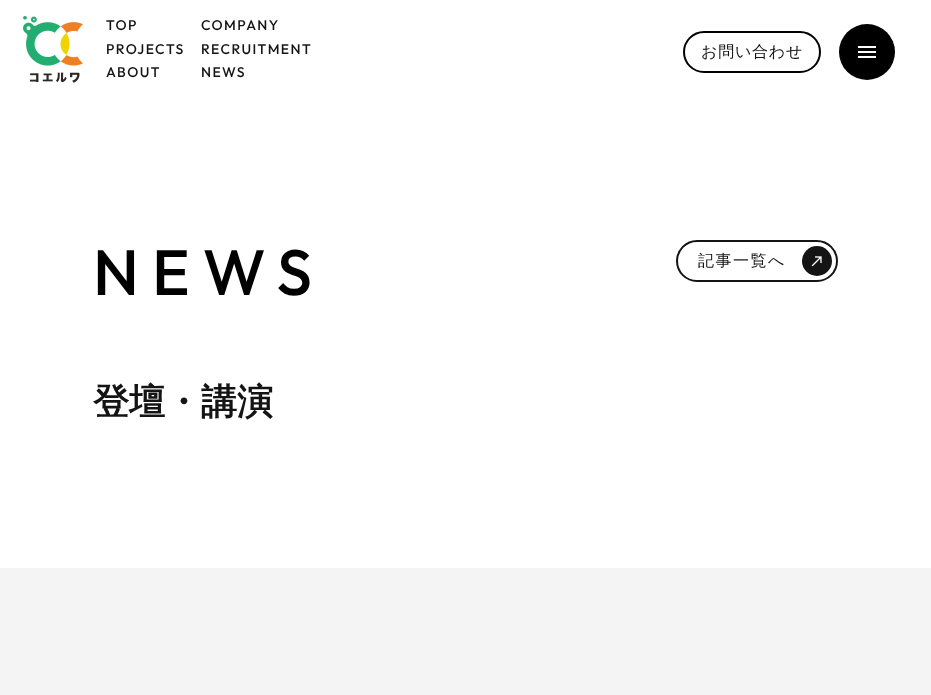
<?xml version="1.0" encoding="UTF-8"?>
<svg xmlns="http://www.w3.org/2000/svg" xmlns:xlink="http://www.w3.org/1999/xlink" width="931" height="695">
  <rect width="100%" height="100%" fill="#ffffff" />
  <image x="23" y="16" width="60" height="67" xlink:href="image1.png" />
  <rect x="684" y="32" width="136" height="40" rx="20" fill="none" stroke="#000000" stroke-width="2" />
  <circle cx="867" cy="52" r="28" fill="#000000" />
  <image x="858" y="46" width="18" height="12" xlink:href="image2.png" />
  <rect x="677" y="241" width="160" height="40" rx="20" fill="none" stroke="#141414" stroke-width="2" />
  <circle cx="817" cy="261" r="15" fill="#141414" />
  <image x="811" y="256" width="11" height="11" xlink:href="image3.png" />
  <rect y="568" width="931" height="127" fill="#f4f4f4" />
  <text x="106" y="30" style="font-family: Outfit; font-size: 14px; font-weight: 500; letter-spacing: 1.4px; fill: #141414">TOP</text>
  <text x="106" y="54" style="font-family: Outfit; font-size: 14px; font-weight: 500; letter-spacing: 1.4px; fill: #141414">PROJECTS</text>
  <text x="106" y="77" style="font-family: Outfit; font-size: 14px; font-weight: 500; letter-spacing: 1.4px; fill: #141414">ABOUT</text>
  <text x="201" y="30" style="font-family: Outfit; font-size: 14px; font-weight: 500; letter-spacing: 1.4px; fill: #141414">COMPANY</text>
  <text x="201" y="54" style="font-family: Outfit; font-size: 14px; font-weight: 500; letter-spacing: 1.4px; fill: #141414">RECRUITMENT</text>
  <text x="201" y="77" style="font-family: Outfit; font-size: 14px; font-weight: 500; letter-spacing: 1.4px; fill: #141414">NEWS</text>
  <text x="701" y="57" style="font-family: WenQuanYi Zen Hei; font-size: 16px; font-weight: 500; letter-spacing: 0.75px; fill: #141414">お問い合わせ</text>
  <text x="93" y="295" style="font-family: Outfit; font-size: 64px; font-weight: 500; letter-spacing: 13px; fill: #000000">NEWS</text>
  <text x="698" y="266" style="font-family: WenQuanYi Zen Hei; font-size: 16px; font-weight: 500; letter-spacing: 1.5px; fill: #141414">記事一覧へ</text>
  <text x="93" y="414" style="font-family: WenQuanYi Zen Hei; font-size: 36px; font-weight: bold; fill: #141414">登壇・講演</text>
</svg>
